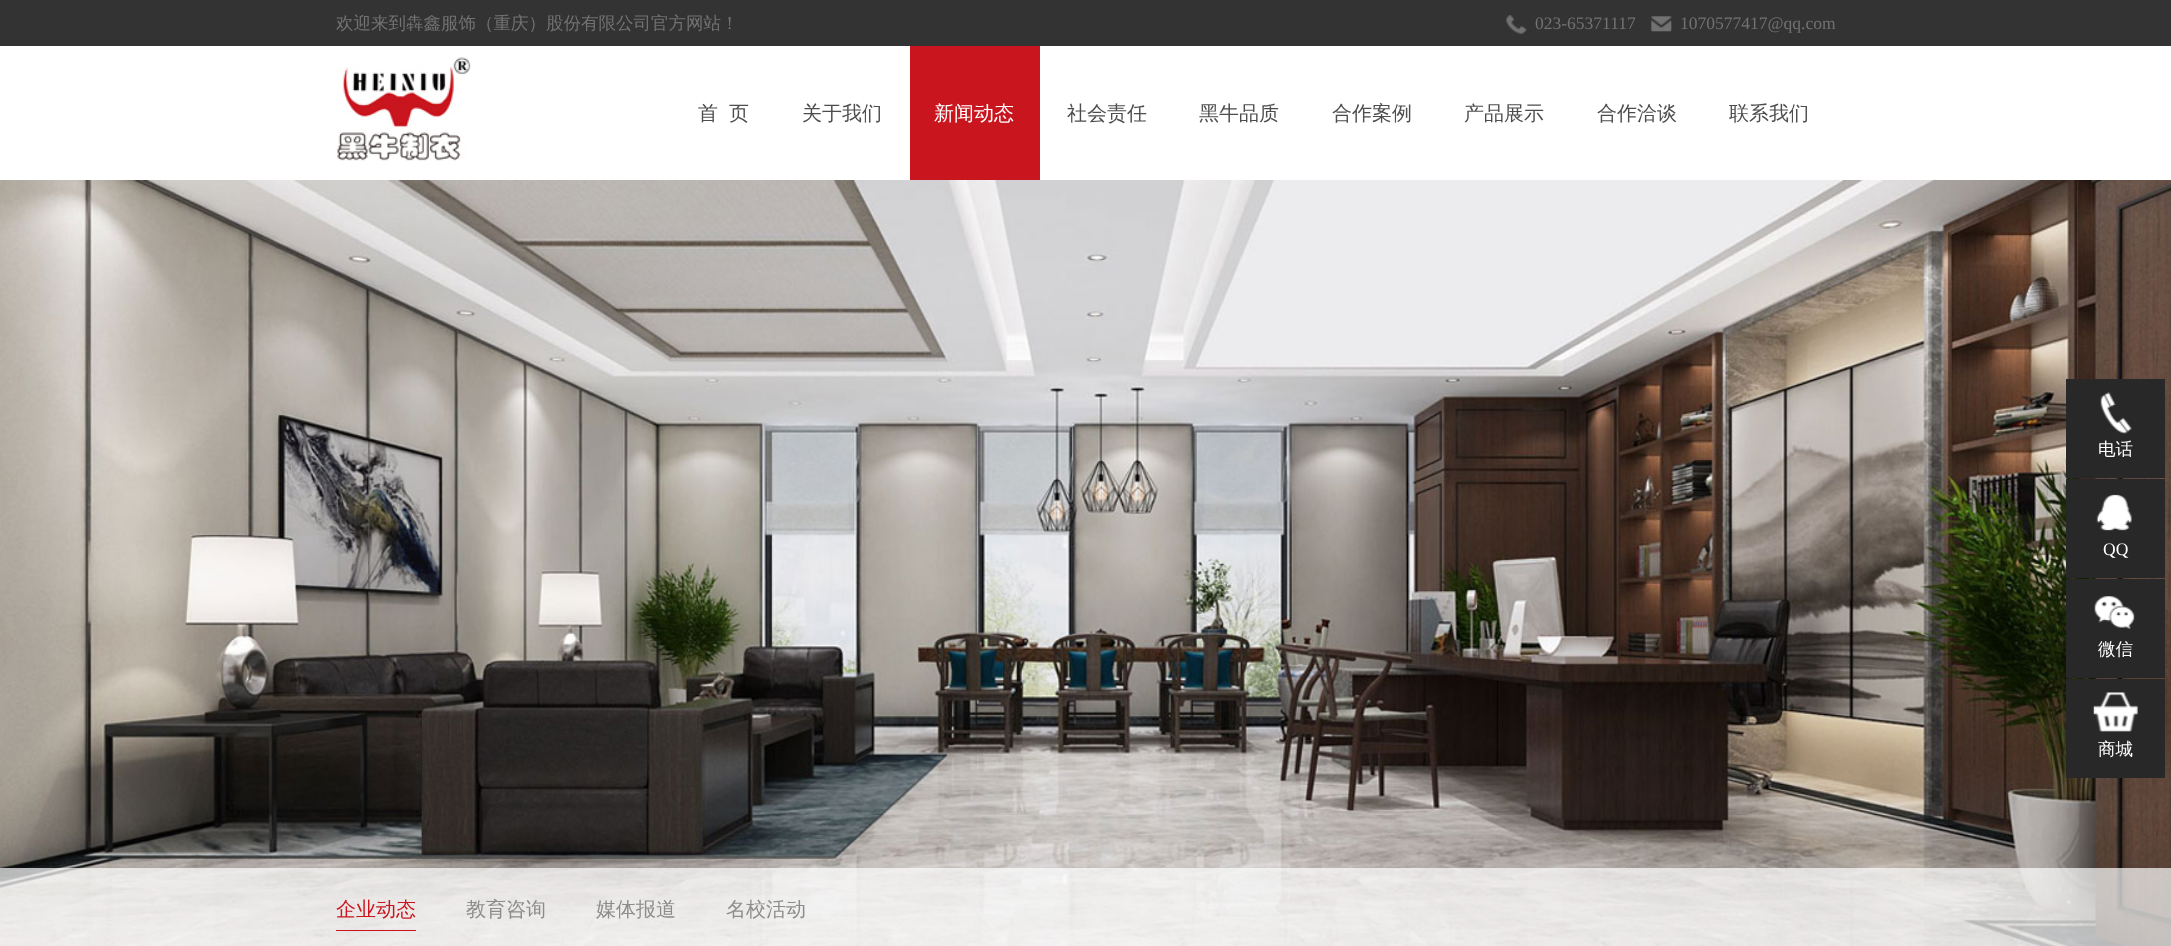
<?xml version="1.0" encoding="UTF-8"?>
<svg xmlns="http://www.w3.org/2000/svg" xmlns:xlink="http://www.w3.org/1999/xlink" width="2171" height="946">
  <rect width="100%" height="100%" fill="#ffffff" />
  <rect width="2171" height="46" fill="#333333" />
  <image x="1506" y="15" width="21" height="19" xlink:href="image1.png" />
  <image x="1651" y="16" width="21" height="16" xlink:href="image2.png" />
  <image x="337" y="57" width="134" height="104" xlink:href="image3.png" />
  <rect x="910" y="46" width="130" height="134" fill="#c9151e" />
  <image x="0" y="180" width="2171" height="766" xlink:href="image8.png" />
  <rect x="2066" y="379" width="99" height="99" fill="#282828" />
  <image x="2100" y="392" width="32" height="42" xlink:href="image4.png" />
  <rect x="2066" y="479" width="99" height="99" fill="#282828" />
  <image x="2096" y="494" width="36" height="37" xlink:href="image5.png" />
  <rect x="2066" y="579" width="99" height="99" fill="#282828" />
  <image x="2094" y="596" width="41" height="33" xlink:href="image6.png" />
  <rect x="2066" y="679" width="99" height="99" fill="#282828" />
  <image x="2093" y="692" width="45" height="40" xlink:href="image7.png" />
  <rect y="868" width="2171" height="78" fill="#ffffff" fill-opacity="0.7" />
  <rect x="336" y="930" width="80" height="1" fill="#c9151e" />
  <text x="336" y="29" style="font-family: WenQuanYi Zen Hei; font-size: 17.5px; font-weight: 500; fill: #727272">欢迎来到犇鑫服饰（重庆）股份有限公司官方网站！</text>
  <text x="1535" y="29" style="font-family: Liberation Serif; font-size: 17.5px; fill: #727272">023-65371117</text>
  <text x="1680" y="29" style="font-family: Liberation Serif; font-size: 17.5px; fill: #727272">1070577417@qq.com</text>
  <text x="698" y="120" style="font-family: WenQuanYi Zen Hei; font-size: 20px; font-weight: 500; fill: #4d4d4d">首</text>
  <text x="729" y="120" style="font-family: WenQuanYi Zen Hei; font-size: 20px; font-weight: 500; fill: #4d4d4d">页</text>
  <text x="802" y="120" style="font-family: WenQuanYi Zen Hei; font-size: 20px; font-weight: 500; fill: #4d4d4d">关于我们</text>
  <text x="934" y="120" style="font-family: WenQuanYi Zen Hei; font-size: 20px; font-weight: 500; fill: #ffffff">新闻动态</text>
  <text x="1067" y="120" style="font-family: WenQuanYi Zen Hei; font-size: 20px; font-weight: 500; fill: #4d4d4d">社会责任</text>
  <text x="1199" y="120" style="font-family: WenQuanYi Zen Hei; font-size: 20px; font-weight: 500; fill: #4d4d4d">黑牛品质</text>
  <text x="1332" y="120" style="font-family: WenQuanYi Zen Hei; font-size: 20px; font-weight: 500; fill: #4d4d4d">合作案例</text>
  <text x="1464" y="120" style="font-family: WenQuanYi Zen Hei; font-size: 20px; font-weight: 500; fill: #4d4d4d">产品展示</text>
  <text x="1597" y="120" style="font-family: WenQuanYi Zen Hei; font-size: 20px; font-weight: 500; fill: #4d4d4d">合作洽谈</text>
  <text x="1729" y="120" style="font-family: WenQuanYi Zen Hei; font-size: 20px; font-weight: 500; fill: #4d4d4d">联系我们</text>
  <text x="2098" y="455" style="font-family: WenQuanYi Zen Hei; font-size: 17.5px; font-weight: 500; fill: #ffffff">电话</text>
  <text x="2103" y="555" style="font-family: Liberation Serif; font-size: 17.5px; fill: #ffffff">QQ</text>
  <text x="2098" y="655" style="font-family: WenQuanYi Zen Hei; font-size: 17.5px; font-weight: 500; fill: #ffffff">微信</text>
  <text x="2098" y="755" style="font-family: WenQuanYi Zen Hei; font-size: 17.5px; font-weight: 500; fill: #ffffff">商城</text>
  <text x="336" y="916" style="font-family: WenQuanYi Zen Hei; font-size: 20px; font-weight: 500; fill: #c9151e">企业动态</text>
  <text x="466" y="916" style="font-family: WenQuanYi Zen Hei; font-size: 20px; font-weight: 500; fill: #8c8c8c">教育咨询</text>
  <text x="596" y="916" style="font-family: WenQuanYi Zen Hei; font-size: 20px; font-weight: 500; fill: #8c8c8c">媒体报道</text>
  <text x="726" y="916" style="font-family: WenQuanYi Zen Hei; font-size: 20px; font-weight: 500; fill: #8c8c8c">名校活动</text>
</svg>
